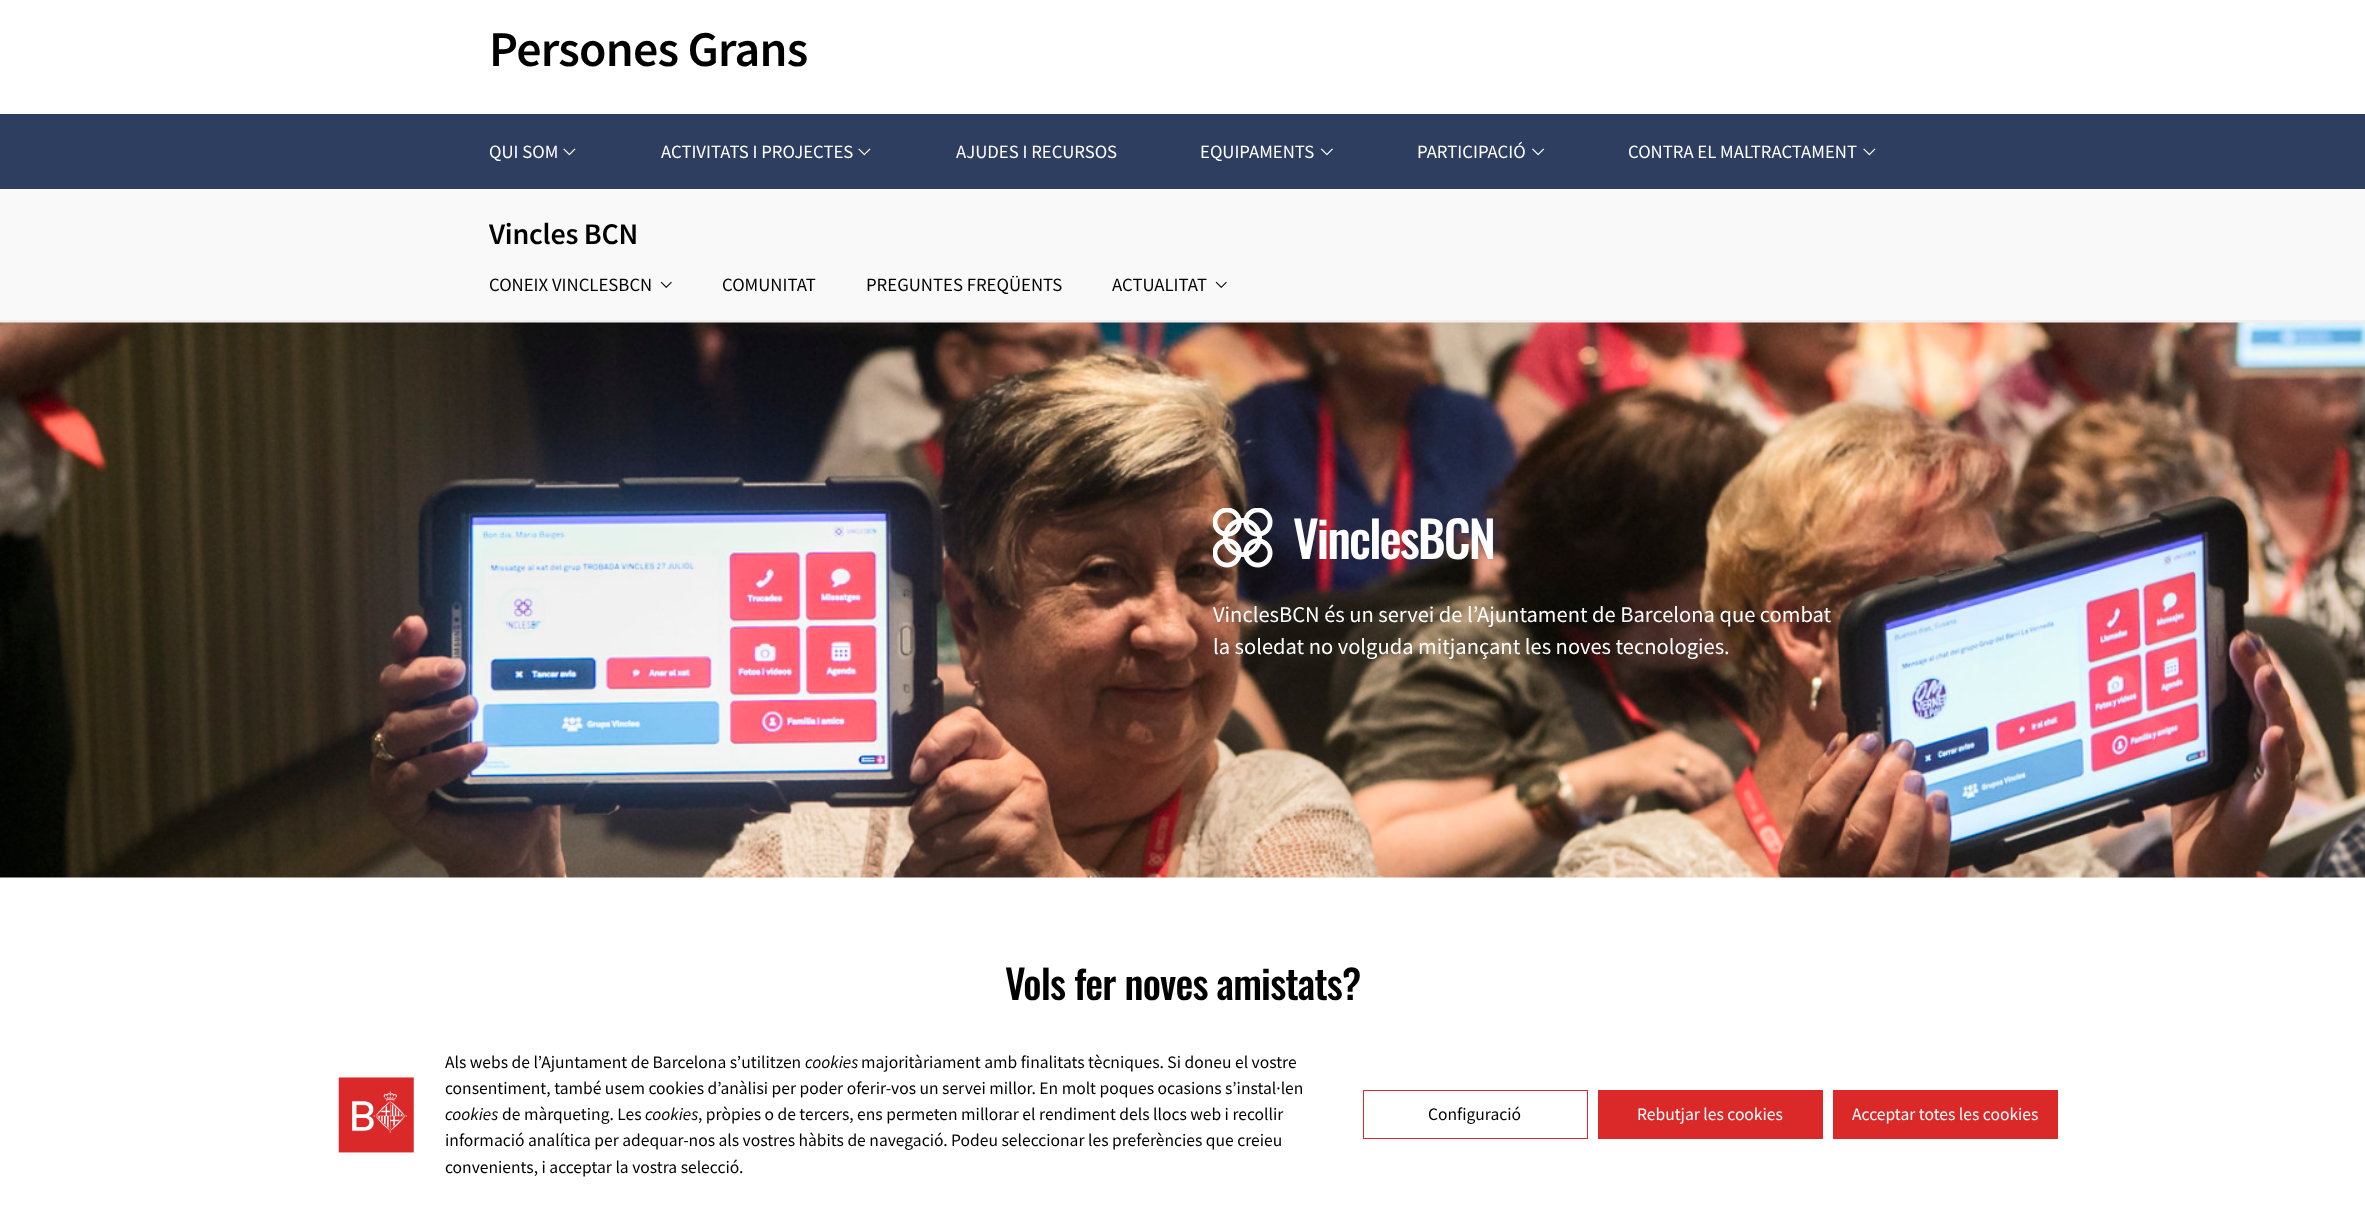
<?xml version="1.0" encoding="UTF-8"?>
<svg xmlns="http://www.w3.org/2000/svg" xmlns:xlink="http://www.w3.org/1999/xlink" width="2365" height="1215">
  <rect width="100%" height="100%" fill="#ffffff" />
  <rect y="114" width="2365" height="75" fill="#2e3e60" />
  <image x="563" y="148" width="13" height="8" xlink:href="image1.png" />
  <image x="858" y="148" width="13" height="8" xlink:href="image1.png" />
  <image x="1320" y="148" width="13" height="8" xlink:href="image2.png" />
  <image x="1532" y="148" width="13" height="8" xlink:href="image3.png" />
  <image x="1863" y="148" width="13" height="8" xlink:href="image1.png" />
  <rect y="189" width="2365" height="131" fill="#faf9fa" />
  <rect y="320" width="2365" height="3" fill="#f2edee" />
  <image x="660" y="281" width="12" height="7" xlink:href="image4.png" />
  <image x="1215" y="281" width="12" height="7" xlink:href="image4.png" />
  <image x="0" y="322" width="2365" height="556" xlink:href="image5.png" />
  <image x="1213" y="508" width="60" height="60" xlink:href="image6.png" />
  <image x="338" y="1077" width="76" height="76" xlink:href="image7.png" />
  <rect x="1363.5" y="1090.5" width="224" height="48" fill="none" stroke="#db2828" />
  <rect x="1598" y="1090" width="225" height="49" fill="#db2828" />
  <rect x="1833" y="1090" width="225" height="49" fill="#db2828" />
  <text x="489" y="66" style="font-family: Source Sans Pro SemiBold; font-size: 50px; font-weight: 600; letter-spacing: -0.8px; fill: #000000">Persones Grans</text>
  <text x="489" y="158" style="font-family: Source Sans Pro; font-size: 18.75px; fill: #ffffff">QUI SOM</text>
  <text x="661" y="158" style="font-family: Source Sans Pro; font-size: 18.75px; fill: #ffffff">ACTIVITATS I PROJECTES</text>
  <text x="956" y="158" style="font-family: Source Sans Pro; font-size: 18.75px; fill: #ffffff">AJUDES I RECURSOS</text>
  <text x="1200" y="158" style="font-family: Source Sans Pro; font-size: 18.75px; fill: #ffffff">EQUIPAMENTS</text>
  <text x="1417" y="158" style="font-family: Source Sans Pro; font-size: 18.75px; fill: #ffffff">PARTICIPACIÓ</text>
  <text x="1628" y="158" style="font-family: Source Sans Pro; font-size: 18.75px; fill: #ffffff">CONTRA EL MALTRACTAMENT</text>
  <text x="489" y="244" style="font-family: Source Sans Pro SemiBold; font-size: 30px; font-weight: 600; letter-spacing: -0.25px; fill: #000000">Vincles BCN</text>
  <text x="489" y="291" style="font-family: Source Sans Pro; font-size: 18.75px; fill: #000000">CONEIX VINCLESBCN</text>
  <text x="722" y="291" style="font-family: Source Sans Pro; font-size: 18.75px; fill: #000000">COMUNITAT</text>
  <text x="866" y="291" style="font-family: Source Sans Pro; font-size: 18.75px; fill: #000000">PREGUNTES FREQÜENTS</text>
  <text x="1112" y="291" style="font-family: Source Sans Pro; font-size: 18.75px; fill: #000000">ACTUALITAT</text>
  <text x="1293" y="559" style="font-family: Oswald; font-size: 50px; font-weight: 500; letter-spacing: -2px; fill: #ffffff">VinclesBCN</text>
  <text x="1213" y="622" style="font-family: Source Sans Pro; font-size: 22.5px; fill: #ffffff">VinclesBCN és un servei de l’Ajuntament de Barcelona que combat</text>
  <text x="1213" y="654" style="font-family: Source Sans Pro; font-size: 22.5px; fill: #ffffff">la soledat no volguda mitjançant les noves tecnologies.</text>
  <text x="1005" y="1000" style="font-family: Oswald; font-size: 40px; font-weight: 500; letter-spacing: -0.8px; fill: #000000">Vols fer noves amistats?</text>
  <text x="445" y="1068" style="font-family: Source Sans Pro; font-size: 17.5px; fill: #000000">Als webs de l’Ajuntament de Barcelona s’utilitzen</text>
  <text x="805" y="1068" style="font-family: Source Sans Pro; font-size: 17.5px; font-style: italic; fill: #000000">cookies</text>
  <text x="861" y="1068" style="font-family: Source Sans Pro; font-size: 17.5px; fill: #000000">majoritàriament amb finalitats tècniques. Si doneu el vostre</text>
  <text x="445" y="1094" style="font-family: Source Sans Pro; font-size: 17.5px; fill: #000000">consentiment, també usem cookies d’anàlisi per poder oferir-vos un servei millor. En molt poques ocasions s’instal·len</text>
  <text x="445" y="1120" style="font-family: Source Sans Pro; font-size: 17.5px; font-style: italic; fill: #000000">cookies</text>
  <text x="502" y="1120" style="font-family: Source Sans Pro; font-size: 17.5px; fill: #000000">de màrqueting. Les</text>
  <text x="645" y="1120" style="font-family: Source Sans Pro; font-size: 17.5px; font-style: italic; fill: #000000">cookies</text>
  <text x="698" y="1120" style="font-family: Source Sans Pro; font-size: 17.5px; fill: #000000">, pròpies o de tercers, ens permeten millorar el rendiment dels llocs web i recollir</text>
  <text x="445" y="1146" style="font-family: Source Sans Pro; font-size: 17.5px; fill: #000000">informació analítica per adequar-nos als vostres hàbits de navegació. Podeu seleccionar les preferències que creieu</text>
  <text x="445" y="1173" style="font-family: Source Sans Pro; font-size: 17.5px; fill: #000000">convenients, i acceptar la vostra selecció.</text>
  <text x="1428" y="1120" style="font-family: Source Sans Pro; font-size: 17.5px; fill: #000000">Configuració</text>
  <text x="1637" y="1120" style="font-family: Source Sans Pro; font-size: 17.5px; fill: #ffffff">Rebutjar les cookies</text>
  <text x="1852" y="1120" style="font-family: Source Sans Pro; font-size: 17.5px; fill: #ffffff">Acceptar totes les cookies</text>
</svg>
